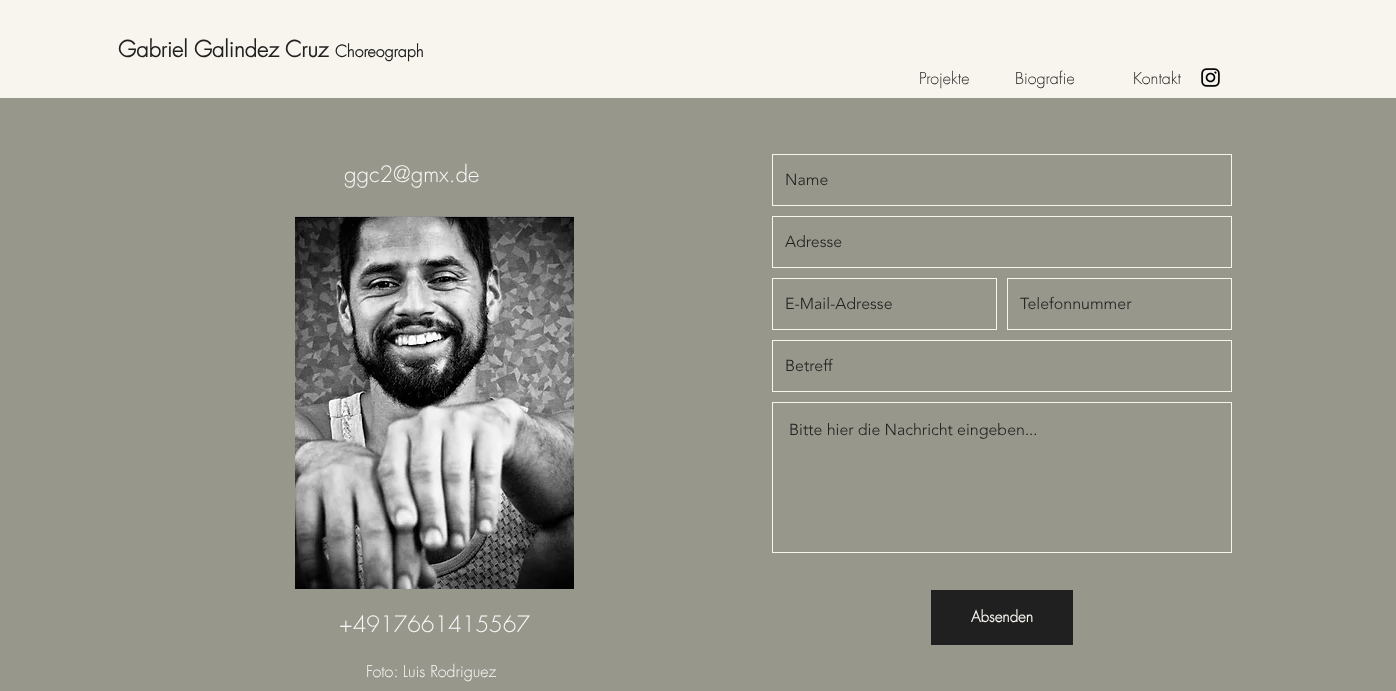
<?xml version="1.0" encoding="UTF-8"?>
<svg xmlns="http://www.w3.org/2000/svg" xmlns:xlink="http://www.w3.org/1999/xlink" width="1396" height="691">
  <rect width="100%" height="100%" fill="#98978c" />
  <rect width="1396" height="98" fill="#f7f5ee" />
  <image x="1201" y="68" width="19" height="19" xlink:href="image1.png" />
  <image x="295" y="216" width="279" height="373" xlink:href="image2.png" />
  <rect x="772.5" y="154.5" width="459" height="51" fill="none" stroke="#f7f5ee" />
  <rect x="772.5" y="216.5" width="459" height="51" fill="none" stroke="#f7f5ee" />
  <rect x="772.5" y="278.5" width="224" height="51" fill="none" stroke="#f7f5ee" />
  <rect x="1007.5" y="278.5" width="224" height="51" fill="none" stroke="#f7f5ee" />
  <rect x="772.5" y="340.5" width="459" height="51" fill="none" stroke="#f7f5ee" />
  <rect x="772.5" y="402.5" width="459" height="150" fill="none" stroke="#f7f5ee" />
  <rect x="931" y="590" width="142" height="55" fill="#202020" />
  <text x="118" y="57" style="font-family: futura; font-size: 22px; font-weight: bold; fill: #202020">Gabriel Galindez Cruz</text>
  <text x="335" y="57" style="font-family: futura; font-size: 16px; font-weight: bold; fill: #202020">Choreograph</text>
  <text x="919" y="84" style="font-family: futura; font-size: 16px; font-weight: 300; fill: #202020">Projekte</text>
  <text x="1015" y="84" style="font-family: futura; font-size: 16px; font-weight: 300; fill: #202020">Biografie</text>
  <text x="1133" y="84" style="font-family: futura; font-size: 16px; font-weight: 300; fill: #202020">Kontakt</text>
  <text x="344" y="182" style="font-family: futura; font-size: 22px; font-weight: 300; fill: #fafafa">ggc2@gmx.de</text>
  <text x="339" y="632" style="font-family: futura; font-size: 22px; font-weight: 300; fill: #fafafa">+4917661415567</text>
  <text x="366" y="677" style="font-family: futura; font-size: 16px; font-weight: 300; fill: #fafafa">Foto: Luis Rodriguez</text>
  <text x="785" y="185" style="font-family: 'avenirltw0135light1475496'; font-size: 16px; font-weight: 300; fill: #202020">Name</text>
  <text x="785" y="247" style="font-family: 'avenirltw0135light1475496'; font-size: 16px; font-weight: 300; fill: #202020">Adresse</text>
  <text x="785" y="309" style="font-family: 'avenirltw0135light1475496'; font-size: 16px; font-weight: 300; fill: #202020">E-Mail-Adresse</text>
  <text x="1020" y="309" style="font-family: 'avenirltw0135light1475496'; font-size: 16px; font-weight: 300; fill: #202020">Telefonnummer</text>
  <text x="785" y="371" style="font-family: 'avenirltw0135light1475496'; font-size: 16px; font-weight: 300; fill: #202020">Betreff</text>
  <text x="789" y="435" style="font-family: 'avenirltw0135light1475496'; font-size: 16px; font-weight: 300; fill: #202020">Bitte hier die Nachricht eingeben...</text>
  <text x="971" y="622" style="font-family: futura; font-size: 15px; font-weight: bold; fill: #f7f5ee">Absenden</text>
</svg>
